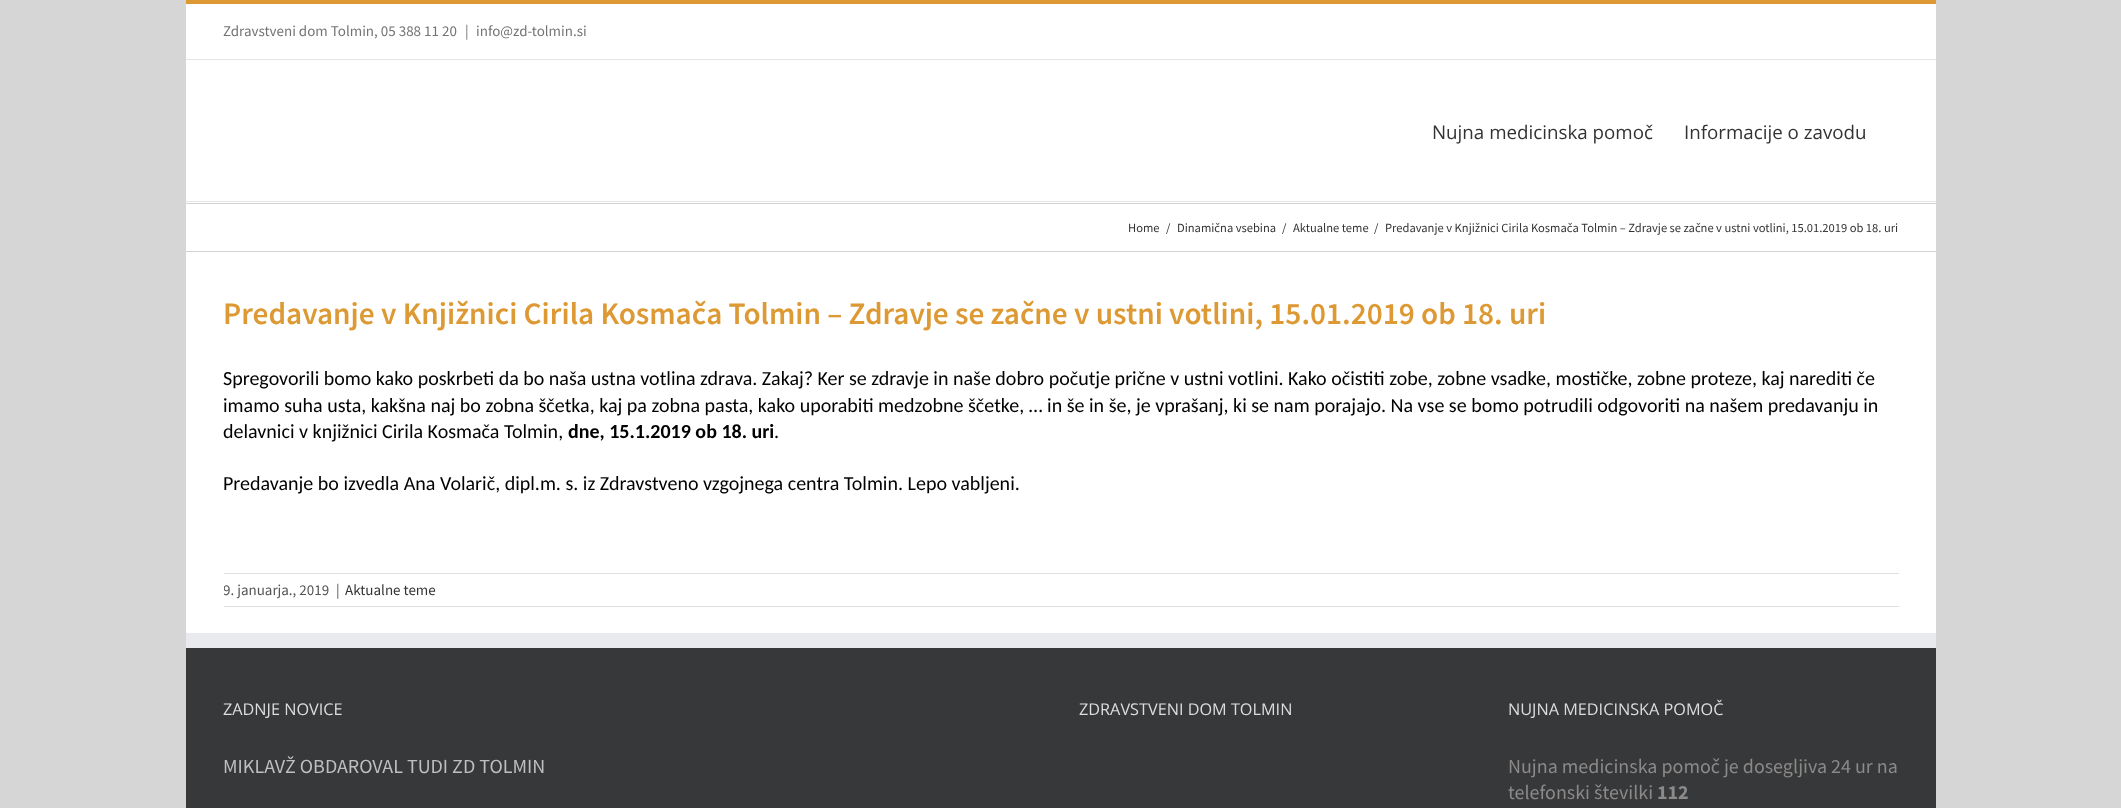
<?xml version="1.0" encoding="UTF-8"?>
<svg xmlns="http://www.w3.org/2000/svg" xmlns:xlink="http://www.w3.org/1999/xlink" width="2121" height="808">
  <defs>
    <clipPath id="clip1"><rect x="224" y="574" width="1675" height="32" /></clipPath>
  </defs>
  <rect width="100%" height="100%" fill="#d7d6d6" />
  <rect x="186" y="4" width="1750" height="55" fill="#ffffff" />
  <rect x="186" width="1750" height="4" fill="#dd9933" />
  <rect x="186" y="59" width="1750" height="1" fill="#e5e5e5" />
  <rect x="186" y="60" width="1750" height="143" fill="#ffffff" />
  <rect x="186" y="201" width="1750" height="1" fill="#e5e5e5" />
  <rect x="186" y="204" width="1750" height="429" fill="#ffffff" />
  <rect x="186" y="203" width="1750" height="1" fill="#d2d3d4" />
  <rect x="186" y="251" width="1750" height="1" fill="#d2d3d4" />
  <rect x="224" y="573" width="1675" height="1" fill="#e0dede" />
  <rect x="224" y="606" width="1675" height="1" fill="#e0dede" />
  <rect x="186" y="648" width="1750" height="160" fill="#363839" />
  <rect x="186" y="633" width="1750" height="15" fill="#e9eaee" />
  <text x="223" y="36" style="font-family: Source Sans Pro; font-size: 15px; fill: #747474">Zdravstveni dom Tolmin, 05 388 11 20</text>
  <text x="465" y="36" style="font-family: Source Sans Pro; font-size: 15px; fill: #747474">|</text>
  <text x="476" y="36" style="font-family: Source Sans Pro; font-size: 15px; fill: #747474">info@zd-tolmin.si</text>
  <text x="1432" y="139" style="font-family: Open Sans; font-size: 18.75px; fill: #333333">Nujna medicinska pomoč</text>
  <text x="1684" y="139" style="font-family: Open Sans; font-size: 18.75px; fill: #333333">Informacije o zavodu</text>
  <text x="1128" y="232" style="font-family: Source Sans Pro; font-size: 12.5px; fill: #333333">Home</text>
  <text x="1166" y="232" style="font-family: Source Sans Pro; font-size: 12.5px; fill: #333333">/</text>
  <text x="1177" y="232" style="font-family: Source Sans Pro; font-size: 12.5px; fill: #333333">Dinamična vsebina</text>
  <text x="1282" y="232" style="font-family: Source Sans Pro; font-size: 12.5px; fill: #333333">/</text>
  <text x="1293" y="232" style="font-family: Source Sans Pro; font-size: 12.5px; fill: #333333">Aktualne teme</text>
  <text x="1374" y="232" style="font-family: Source Sans Pro; font-size: 12.5px; fill: #333333">/</text>
  <text x="1385" y="232" style="font-family: Source Sans Pro; font-size: 12.5px; fill: #333333">Predavanje v Knjižnici Cirila Kosmača Tolmin – Zdravje se začne v ustni votlini, 15.01.2019 ob 18. uri</text>
  <text x="223" y="324" style="font-family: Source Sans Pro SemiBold; font-size: 31.25px; font-weight: 600; fill: #dd9933">Predavanje v Knjižnici Cirila Kosmača Tolmin – Zdravje se začne v ustni votlini, 15.01.2019 ob 18. uri</text>
  <text x="223" y="385" style="font-family: Carlito; font-size: 20px; fill: #000000">Spregovorili bomo kako poskrbeti da bo naša ustna votlina zdrava. Zakaj? Ker se zdravje in naše dobro počutje prične v ustni votlini. Kako očistiti zobe, zobne vsadke, mostičke, zobne proteze, kaj narediti če</text>
  <text x="223" y="412" style="font-family: Carlito; font-size: 20px; fill: #000000">imamo suha usta, kakšna naj bo zobna ščetka, kaj pa zobna pasta, kako uporabiti medzobne ščetke, … in še in še, je vprašanj, ki se nam porajajo. Na vse se bomo potrudili odgovoriti na našem predavanju in</text>
  <text x="223" y="438" style="font-family: Carlito; font-size: 20px; fill: #000000">delavnici v knjižnici Cirila Kosmača Tolmin,</text>
  <text x="568" y="438" style="font-family: Carlito; font-size: 20px; font-weight: bold; fill: #000000">dne, 15.1.2019 ob 18. uri</text>
  <text x="774" y="438" style="font-family: Carlito; font-size: 20px; fill: #000000">.</text>
  <text x="223" y="490" style="font-family: Carlito; font-size: 20px; fill: #000000">Predavanje bo izvedla Ana Volarič, dipl.m. s. iz Zdravstveno vzgojnega centra Tolmin. Lepo vabljeni.</text>
  <g clip-path="url(#clip1)">
    <text x="223" y="595" style="font-family: Source Sans Pro; font-size: 15px; fill: #545454">9. januarja., 2019</text>
  </g>
  <text x="336" y="595" style="font-family: Source Sans Pro; font-size: 15px; fill: #545454">|</text>
  <text x="345" y="595" style="font-family: Source Sans Pro; font-size: 15px; fill: #333333">Aktualne teme</text>
  <text x="223" y="715" style="font-family: Open Sans; font-size: 16.25px; fill: #dddddd">ZADNJE NOVICE</text>
  <text x="223" y="773" style="font-family: Source Sans Pro; font-size: 20px; fill: #bfbfbf">MIKLAVŽ OBDAROVAL TUDI ZD TOLMIN</text>
  <text x="1079" y="715" style="font-family: Open Sans; font-size: 16.25px; fill: #dddddd">ZDRAVSTVENI DOM TOLMIN</text>
  <text x="1508" y="715" style="font-family: Open Sans; font-size: 16.25px; fill: #dddddd">NUJNA MEDICINSKA POMOČ</text>
  <text x="1508" y="773" style="font-family: Source Sans Pro; font-size: 20px; fill: #8c8989">Nujna medicinska pomoč je dosegljiva 24 ur na</text>
  <text x="1508" y="799" style="font-family: Source Sans Pro; font-size: 20px; fill: #8c8989">telefonski številki</text>
  <text x="1657" y="799" style="font-family: Source Sans Pro; font-size: 20px; font-weight: bold; fill: #8c8989">112</text>
</svg>
